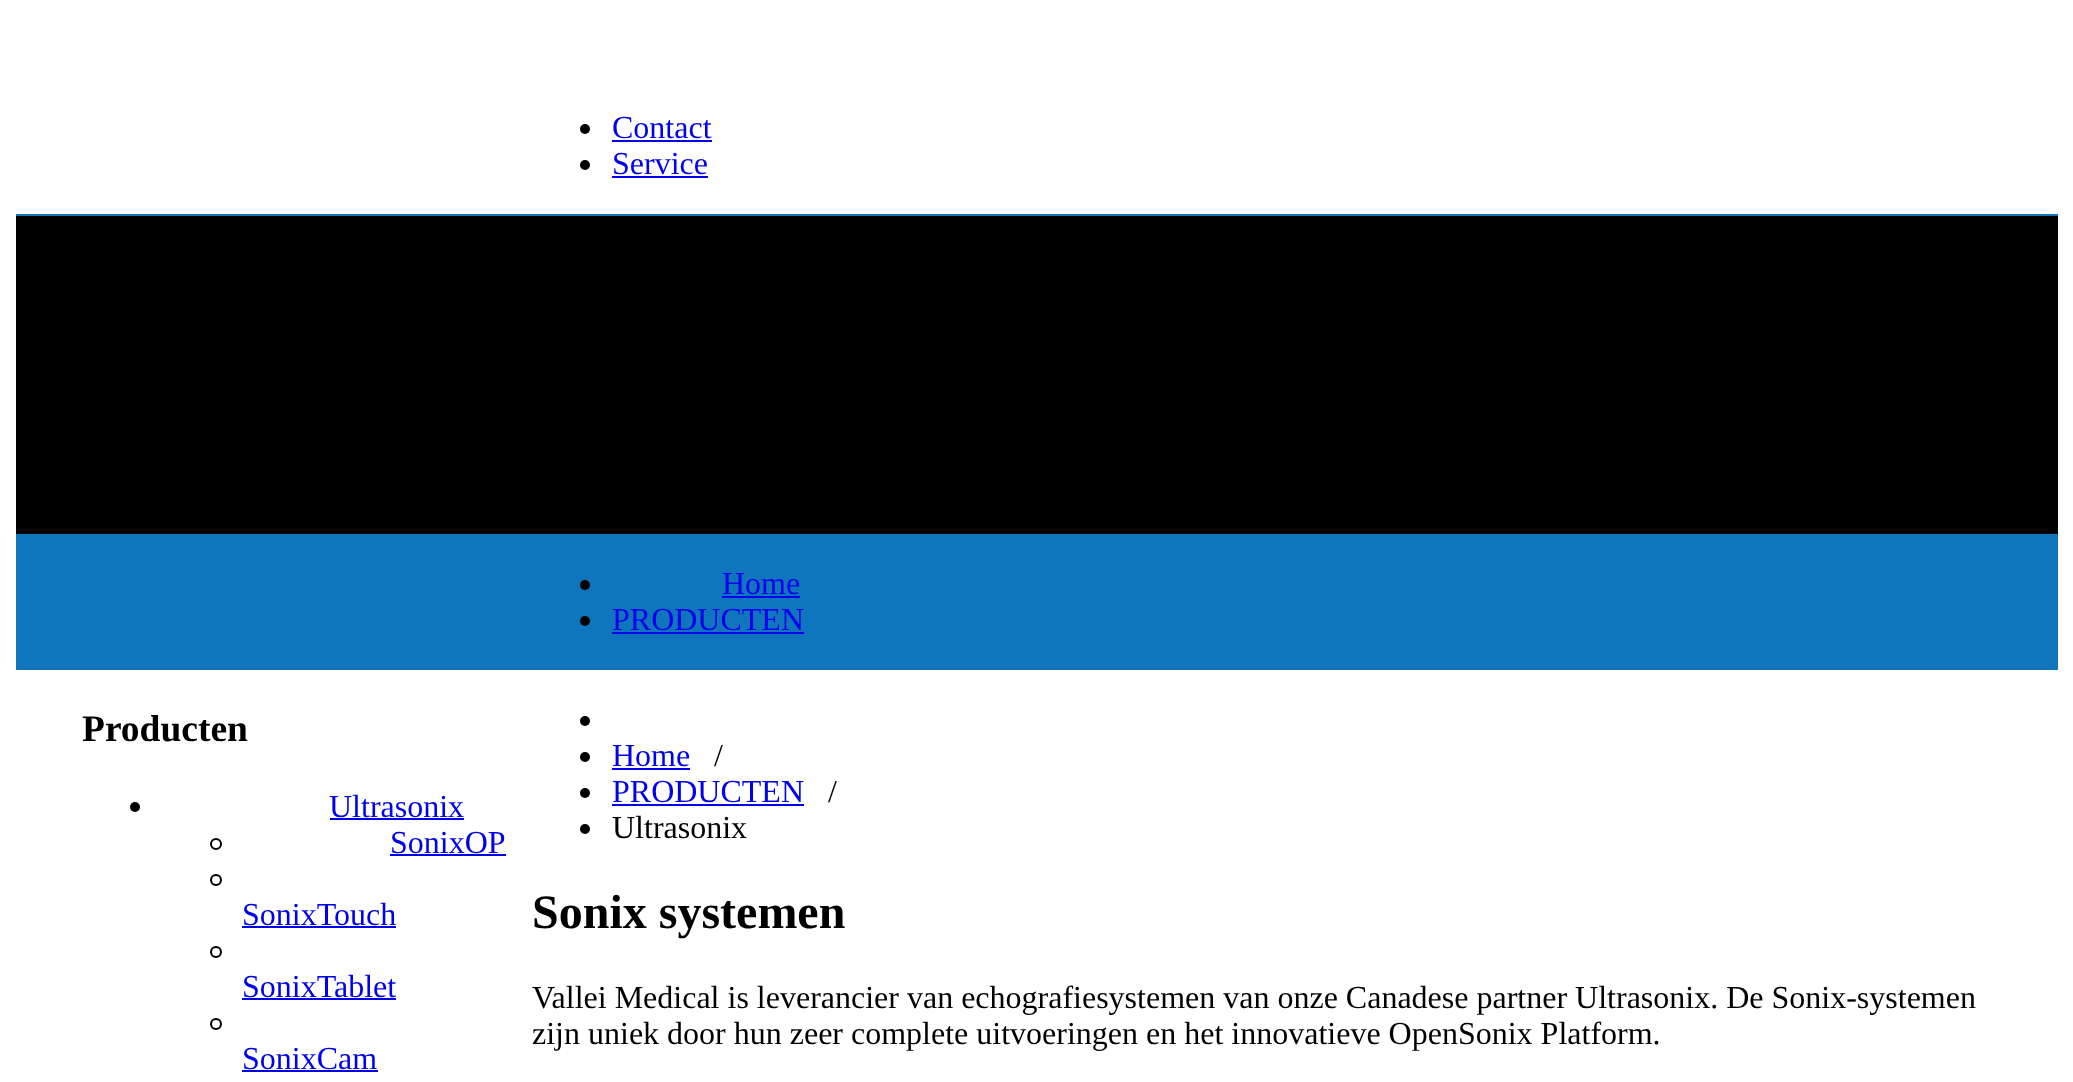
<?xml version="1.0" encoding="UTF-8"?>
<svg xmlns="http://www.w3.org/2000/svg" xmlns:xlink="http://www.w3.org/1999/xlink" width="2073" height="1082">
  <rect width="100%" height="100%" fill="#ffffff" />
  <circle cx="585" cy="129" r="5" fill="#000000" />
  <rect x="612" y="140" width="100" height="2" fill="#0000ee" />
  <circle cx="585" cy="165" r="5" fill="#000000" />
  <rect x="612" y="176" width="96" height="2" fill="#0000ee" />
  <rect x="16" y="214" width="2042" height="2" fill="#0f75bc" />
  <rect x="16" y="216" width="2042" height="318" fill="#000000" />
  <rect x="16" y="534" width="2042" height="136" fill="#0f75bc" />
  <circle cx="585" cy="585" r="5" fill="#000000" />
  <rect x="722" y="596" width="78" height="2" fill="#0000ee" />
  <circle cx="585" cy="621" r="5" fill="#000000" />
  <rect x="612" y="632" width="192" height="2" fill="#0000ee" />
  <circle cx="135" cy="807" r="5" fill="#000000" />
  <rect x="330" y="818" width="134" height="2" fill="#0000ee" />
  <circle cx="216" cy="844" r="5" fill="none" stroke="#000000" stroke-width="2" />
  <rect x="390" y="854" width="116" height="2" fill="#0000ee" />
  <circle cx="216" cy="880" r="5" fill="none" stroke="#000000" stroke-width="2" />
  <rect x="242" y="926" width="154" height="2" fill="#0000ee" />
  <circle cx="216" cy="952" r="5" fill="none" stroke="#000000" stroke-width="2" />
  <rect x="242" y="998" width="154" height="2" fill="#0000ee" />
  <circle cx="216" cy="1024" r="5" fill="none" stroke="#000000" stroke-width="2" />
  <rect x="242" y="1070" width="136" height="2" fill="#0000ee" />
  <circle cx="585" cy="721" r="5" fill="#000000" />
  <circle cx="585" cy="757" r="5" fill="#000000" />
  <rect x="612" y="768" width="78" height="2" fill="#0000ee" />
  <circle cx="585" cy="793" r="5" fill="#000000" />
  <rect x="612" y="804" width="192" height="2" fill="#0000ee" />
  <circle cx="585" cy="829" r="5" fill="#000000" />
  <text x="612" y="138" style="font-family: Liberation Serif; font-size: 32px; fill: #0000ee">Contact</text>
  <text x="612" y="174" style="font-family: Liberation Serif; font-size: 32px; fill: #0000ee">Service</text>
  <text x="722" y="594" style="font-family: Liberation Serif; font-size: 32px; fill: #0000ee">Home</text>
  <text x="612" y="630" style="font-family: Liberation Serif; font-size: 32px; fill: #0000ee">PRODUCTEN</text>
  <text x="82" y="741" style="font-family: Liberation Serif; font-size: 37.5px; font-weight: bold; fill: #000000">Producten</text>
  <text x="329" y="817" style="font-family: Liberation Serif; font-size: 32px; fill: #0000ee">Ultrasonix</text>
  <text x="390" y="853" style="font-family: Liberation Serif; font-size: 32px; fill: #0000ee">SonixOP</text>
  <text x="242" y="925" style="font-family: Liberation Serif; font-size: 32px; fill: #0000ee">SonixTouch</text>
  <text x="242" y="997" style="font-family: Liberation Serif; font-size: 32px; fill: #0000ee">SonixTablet</text>
  <text x="242" y="1069" style="font-family: Liberation Serif; font-size: 32px; fill: #0000ee">SonixCam</text>
  <text x="612" y="766" style="font-family: Liberation Serif; font-size: 32px; fill: #0000ee">Home</text>
  <text x="714" y="766" style="font-family: Liberation Serif; font-size: 32px; fill: #000000">/</text>
  <text x="612" y="802" style="font-family: Liberation Serif; font-size: 32px; fill: #0000ee">PRODUCTEN</text>
  <text x="828" y="802" style="font-family: Liberation Serif; font-size: 32px; fill: #000000">/</text>
  <text x="612" y="838" style="font-family: Liberation Serif; font-size: 32px; fill: #000000">Ultrasonix</text>
  <text x="532" y="928" style="font-family: Liberation Serif; font-size: 48px; font-weight: bold; fill: #000000">Sonix systemen</text>
  <text x="532" y="1008" style="font-family: Liberation Serif; font-size: 32px; fill: #000000">Vallei Medical is leverancier van echografiesystemen van onze Canadese partner Ultrasonix. De Sonix-systemen</text>
  <text x="532" y="1044" style="font-family: Liberation Serif; font-size: 32px; fill: #000000">zijn uniek door hun zeer complete uitvoeringen en het innovatieve OpenSonix Platform.</text>
</svg>
